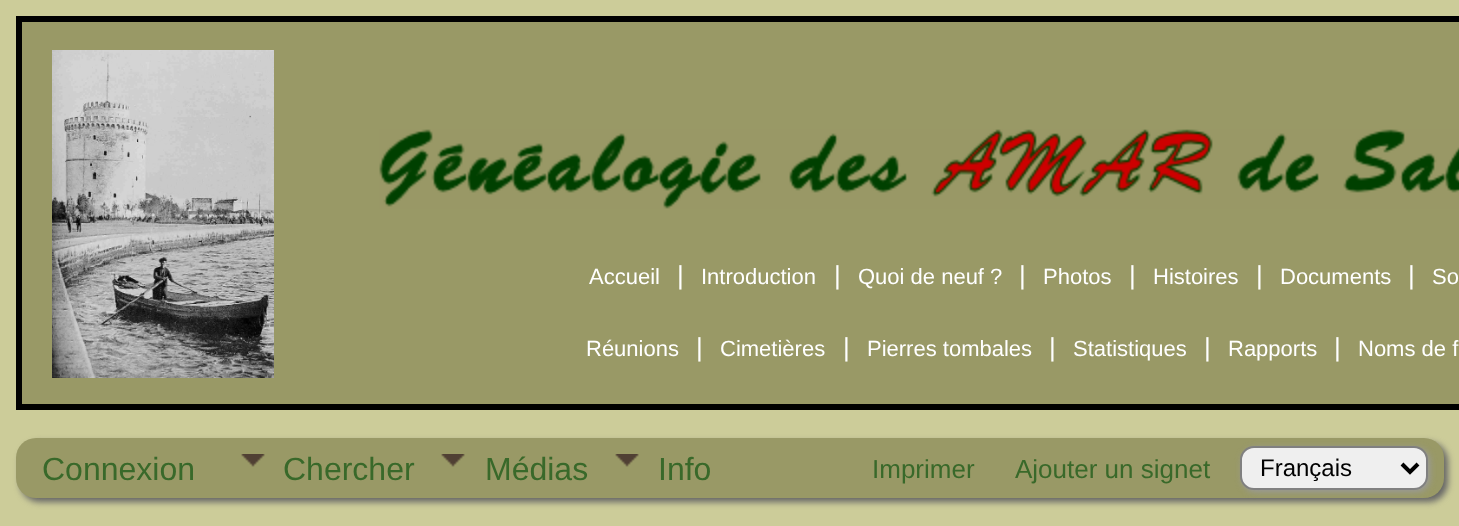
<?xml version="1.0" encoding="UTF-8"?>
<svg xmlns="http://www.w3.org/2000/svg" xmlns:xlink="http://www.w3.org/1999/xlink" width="1459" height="526">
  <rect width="100%" height="100%" fill="#cccc99" />
  <rect x="22" y="22" width="1437" height="382" fill="#999966" />
  <rect x="16" y="16" width="1443" height="6" fill="#000000" />
  <rect x="16" y="404" width="1443" height="6" fill="#000000" />
  <rect x="16" y="16" width="6" height="394" fill="#000000" />
  <image x="52" y="50" width="222" height="328" xlink:href="image1.png" />
  <image x="379" y="129" width="1080" height="80" xlink:href="image2.png" />
  <rect x="20" y="442" width="1428" height="60" rx="20" fill="#666666" filter="blur(3px)" />
  <rect x="16" y="438" width="1428" height="60" rx="20" fill="#999966" />
  <image x="241" y="454" width="24" height="13" xlink:href="image3.png" />
  <image x="441" y="454" width="24" height="13" xlink:href="image3.png" />
  <image x="615" y="454" width="24" height="13" xlink:href="image3.png" />
  <rect x="1242" y="448" width="188" height="44" rx="14" fill="#999999" filter="blur(3px)" />
  <rect x="1241" y="447" width="186" height="42" rx="13" fill="#efefef" stroke="#808080" stroke-width="2" />
  <path d="M 1402 464 l 8 8 l 8 -8" fill="none" stroke="#000000" stroke-width="4" />
  <text x="589" y="284" style="font-family: Liberation Sans; font-size: 22px; fill: #ffffff">Accueil</text>
  <text x="677" y="284" style="font-family: Liberation Sans; font-size: 26px; fill: #ffffff">|</text>
  <text x="701" y="284" style="font-family: Liberation Sans; font-size: 22px; fill: #ffffff">Introduction</text>
  <text x="834" y="284" style="font-family: Liberation Sans; font-size: 26px; fill: #ffffff">|</text>
  <text x="858" y="284" style="font-family: Liberation Sans; font-size: 22px; fill: #ffffff">Quoi de neuf ?</text>
  <text x="1019" y="284" style="font-family: Liberation Sans; font-size: 26px; fill: #ffffff">|</text>
  <text x="1043" y="284" style="font-family: Liberation Sans; font-size: 22px; fill: #ffffff">Photos</text>
  <text x="1129" y="284" style="font-family: Liberation Sans; font-size: 26px; fill: #ffffff">|</text>
  <text x="1153" y="284" style="font-family: Liberation Sans; font-size: 22px; fill: #ffffff">Histoires</text>
  <text x="1256" y="284" style="font-family: Liberation Sans; font-size: 26px; fill: #ffffff">|</text>
  <text x="1280" y="284" style="font-family: Liberation Sans; font-size: 22px; fill: #ffffff">Documents</text>
  <text x="1408" y="284" style="font-family: Liberation Sans; font-size: 26px; fill: #ffffff">|</text>
  <text x="1432" y="284" style="font-family: Liberation Sans; font-size: 22px; fill: #ffffff">So</text>
  <text x="586" y="356" style="font-family: Liberation Sans; font-size: 22px; fill: #ffffff">Réunions</text>
  <text x="696" y="356" style="font-family: Liberation Sans; font-size: 26px; fill: #ffffff">|</text>
  <text x="720" y="356" style="font-family: Liberation Sans; font-size: 22px; fill: #ffffff">Cimetières</text>
  <text x="843" y="356" style="font-family: Liberation Sans; font-size: 26px; fill: #ffffff">|</text>
  <text x="867" y="356" style="font-family: Liberation Sans; font-size: 22px; fill: #ffffff">Pierres tombales</text>
  <text x="1049" y="356" style="font-family: Liberation Sans; font-size: 26px; fill: #ffffff">|</text>
  <text x="1073" y="356" style="font-family: Liberation Sans; font-size: 22px; fill: #ffffff">Statistiques</text>
  <text x="1204" y="356" style="font-family: Liberation Sans; font-size: 26px; fill: #ffffff">|</text>
  <text x="1228" y="356" style="font-family: Liberation Sans; font-size: 22px; fill: #ffffff">Rapports</text>
  <text x="1334" y="356" style="font-family: Liberation Sans; font-size: 26px; fill: #ffffff">|</text>
  <text x="1358" y="356" style="font-family: Liberation Sans; font-size: 22px; fill: #ffffff">Noms de f</text>
  <text x="42" y="480" style="font-family: Liberation Sans; font-size: 32px; fill: #39692a">Connexion</text>
  <text x="283" y="480" style="font-family: Liberation Sans; font-size: 32px; fill: #39692a">Chercher</text>
  <text x="485" y="480" style="font-family: Liberation Sans; font-size: 32px; fill: #39692a">Médias</text>
  <text x="658" y="480" style="font-family: Liberation Sans; font-size: 32px; fill: #39692a">Info</text>
  <text x="872" y="478" style="font-family: Liberation Sans; font-size: 26px; fill: #39692a">Imprimer</text>
  <text x="1015" y="478" style="font-family: Liberation Sans; font-size: 26px; fill: #39692a">Ajouter un signet</text>
  <text x="1260" y="476" style="font-family: Liberation Sans; font-size: 24px; fill: #000000">Français</text>
</svg>
